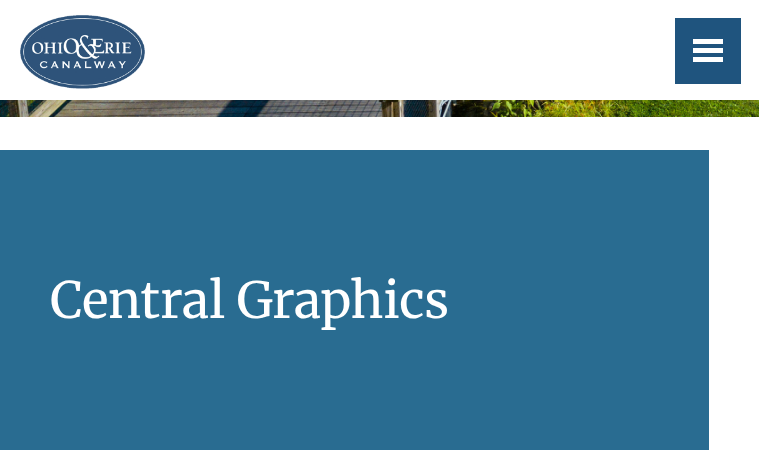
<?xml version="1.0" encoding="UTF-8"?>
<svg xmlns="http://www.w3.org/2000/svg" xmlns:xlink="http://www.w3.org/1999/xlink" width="759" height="472">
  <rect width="100%" height="100%" fill="#ffffff" />
  <rect x="675" y="18" width="66" height="66" fill="#1f547e" />
  <rect x="693" y="39" width="30" height="5" fill="#ffffff" />
  <rect x="693" y="48" width="30" height="5" fill="#ffffff" />
  <rect x="693" y="57" width="30" height="5" fill="#ffffff" />
  <image x="20" y="15" width="125" height="74" xlink:href="image1.png" />
  <image x="0" y="100" width="759" height="17" xlink:href="image2.png" />
  <rect y="150" width="709" height="300" fill="#296c91" />
  <text x="50" y="318" style="font-family: Merriweather; font-size: 50px; fill: #ffffff">Central Graphics</text>
</svg>
